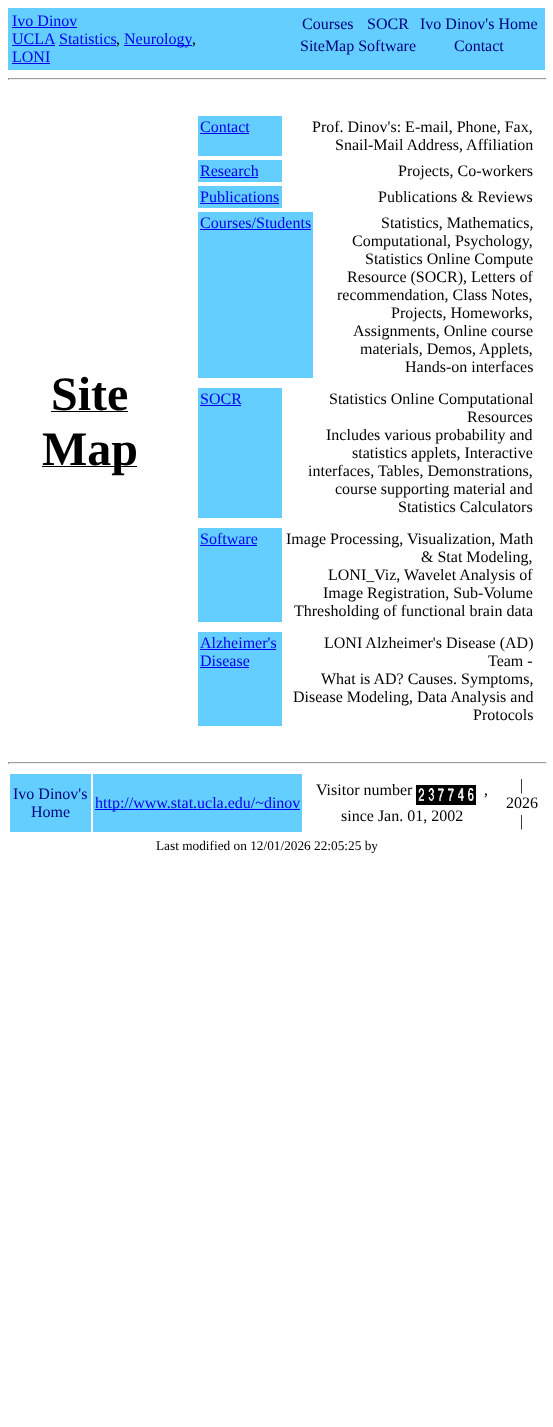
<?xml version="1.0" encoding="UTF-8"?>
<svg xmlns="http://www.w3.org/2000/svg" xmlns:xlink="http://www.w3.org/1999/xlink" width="553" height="1427">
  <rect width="100%" height="100%" fill="#ffffff" />
  <rect x="8" y="8" width="537" height="62" fill="#63ceff" />
  <rect x="12" y="27" width="65" height="1" fill="#0000ee" />
  <rect x="12" y="45" width="43" height="1" fill="#0000ee" />
  <rect x="59" y="45" width="57" height="1" fill="#0000ee" />
  <rect x="124" y="45" width="68" height="1" fill="#0000ee" />
  <rect x="12" y="63" width="38" height="1" fill="#0000ee" />
  <rect x="8" y="78" width="539" height="1" fill="#9f9f9f" />
  <rect x="546" y="78" width="1" height="2" fill="#eeeeee" />
  <rect x="8" y="79" width="539" height="1" fill="#eeeeee" />
  <rect x="8" y="78" width="1" height="2" fill="#9f9f9f" />
  <rect x="51" y="411" width="77" height="1" fill="#000000" />
  <rect x="42" y="466" width="95" height="1" fill="#000000" />
  <rect x="198" y="116" width="84" height="40" fill="#63ceff" />
  <rect x="200" y="133" width="49" height="1" fill="#0000ee" />
  <rect x="198" y="160" width="84" height="22" fill="#63ceff" />
  <rect x="200" y="177" width="58" height="1" fill="#0000ee" />
  <rect x="198" y="186" width="84" height="22" fill="#63ceff" />
  <rect x="200" y="203" width="79" height="1" fill="#0000ee" />
  <rect x="198" y="212" width="115" height="166" fill="#63ceff" />
  <rect x="200" y="229" width="111" height="1" fill="#0000ee" />
  <rect x="198" y="388" width="84" height="130" fill="#63ceff" />
  <rect x="200" y="405" width="41" height="1" fill="#0000ee" />
  <rect x="198" y="528" width="84" height="94" fill="#63ceff" />
  <rect x="200" y="545" width="57" height="1" fill="#0000ee" />
  <rect x="198" y="632" width="84" height="94" fill="#63ceff" />
  <rect x="200" y="649" width="76" height="1" fill="#0000ee" />
  <rect x="200" y="667" width="49" height="1" fill="#0000ee" />
  <rect x="8" y="762" width="539" height="1" fill="#9f9f9f" />
  <rect x="546" y="762" width="1" height="2" fill="#eeeeee" />
  <rect x="8" y="763" width="539" height="1" fill="#eeeeee" />
  <rect x="8" y="762" width="1" height="2" fill="#9f9f9f" />
  <rect x="10" y="774" width="81" height="58" fill="#63ceff" />
  <rect x="93" y="774" width="209" height="58" fill="#63ceff" />
  <rect x="95" y="809" width="205" height="1" fill="#0000ee" />
  <image x="416" y="785" width="60" height="20" xlink:href="image1.png" />
  <text x="12" y="26" style="font-family: Liberation Serif; font-size: 16px; fill: #0000ee">Ivo Dinov</text>
  <text x="12" y="44" style="font-family: Liberation Serif; font-size: 16px; fill: #0000ee">UCLA</text>
  <text x="59" y="44" style="font-family: Liberation Serif; font-size: 16px; fill: #0000ee">Statistics</text>
  <text x="116" y="44" style="font-family: Liberation Serif; font-size: 16px; fill: #000000">,</text>
  <text x="124" y="44" style="font-family: Liberation Serif; font-size: 16px; fill: #0000ee">Neurology</text>
  <text x="192" y="44" style="font-family: Liberation Serif; font-size: 16px; fill: #000000">,</text>
  <text x="12" y="62" style="font-family: Liberation Serif; font-size: 16px; fill: #0000ee">LONI</text>
  <text x="302" y="29" style="font-family: Liberation Serif; font-size: 16px; fill: #000080">Courses</text>
  <text x="367" y="29" style="font-family: Liberation Serif; font-size: 16px; fill: #000080">SOCR</text>
  <text x="420" y="29" style="font-family: Liberation Serif; font-size: 16px; fill: #000080">Ivo Dinov's Home</text>
  <text x="300" y="51" style="font-family: Liberation Serif; font-size: 16px; fill: #000080">SiteMap Software</text>
  <text x="454" y="51" style="font-family: Liberation Serif; font-size: 16px; fill: #000080">Contact</text>
  <text x="51" y="410" style="font-family: Liberation Serif; font-size: 48px; font-weight: bold; fill: #000000">Site</text>
  <text x="42" y="465" style="font-family: Liberation Serif; font-size: 48px; font-weight: bold; fill: #000000">Map</text>
  <text x="200" y="132" style="font-family: Liberation Serif; font-size: 16px; fill: #0000ee">Contact</text>
  <text x="312" y="132" style="font-family: Liberation Serif; font-size: 16px; fill: #000000">Prof. Dinov's: E-mail, Phone, Fax,</text>
  <text x="335" y="150" style="font-family: Liberation Serif; font-size: 16px; fill: #000000">Snail-Mail Address, Affiliation</text>
  <text x="200" y="176" style="font-family: Liberation Serif; font-size: 16px; fill: #0000ee">Research</text>
  <text x="398" y="176" style="font-family: Liberation Serif; font-size: 16px; fill: #000000">Projects, Co-workers</text>
  <text x="200" y="202" style="font-family: Liberation Serif; font-size: 16px; fill: #0000ee">Publications</text>
  <text x="378" y="202" style="font-family: Liberation Serif; font-size: 16px; fill: #000000">Publications &amp; Reviews</text>
  <text x="200" y="228" style="font-family: Liberation Serif; font-size: 16px; fill: #0000ee">Courses/Students</text>
  <text x="381" y="228" style="font-family: Liberation Serif; font-size: 16px; fill: #000000">Statistics, Mathematics,</text>
  <text x="352" y="246" style="font-family: Liberation Serif; font-size: 16px; fill: #000000">Computational, Psychology,</text>
  <text x="365" y="264" style="font-family: Liberation Serif; font-size: 16px; fill: #000000">Statistics Online Compute</text>
  <text x="347" y="282" style="font-family: Liberation Serif; font-size: 16px; fill: #000000">Resource (SOCR), Letters of</text>
  <text x="337" y="300" style="font-family: Liberation Serif; font-size: 16px; fill: #000000">recommendation, Class Notes,</text>
  <text x="391" y="318" style="font-family: Liberation Serif; font-size: 16px; fill: #000000">Projects, Homeworks,</text>
  <text x="353" y="336" style="font-family: Liberation Serif; font-size: 16px; fill: #000000">Assignments, Online course</text>
  <text x="360" y="354" style="font-family: Liberation Serif; font-size: 16px; fill: #000000">materials, Demos, Applets,</text>
  <text x="405" y="372" style="font-family: Liberation Serif; font-size: 16px; fill: #000000">Hands-on interfaces</text>
  <text x="200" y="404" style="font-family: Liberation Serif; font-size: 16px; fill: #0000ee">SOCR</text>
  <text x="329" y="404" style="font-family: Liberation Serif; font-size: 16px; fill: #000000">Statistics Online Computational</text>
  <text x="467" y="422" style="font-family: Liberation Serif; font-size: 16px; fill: #000000">Resources</text>
  <text x="326" y="440" style="font-family: Liberation Serif; font-size: 16px; fill: #000000">Includes various probability and</text>
  <text x="352" y="458" style="font-family: Liberation Serif; font-size: 16px; fill: #000000">statistics applets, Interactive</text>
  <text x="308" y="476" style="font-family: Liberation Serif; font-size: 16px; fill: #000000">interfaces, Tables, Demonstrations,</text>
  <text x="335" y="494" style="font-family: Liberation Serif; font-size: 16px; fill: #000000">course supporting material and</text>
  <text x="398" y="512" style="font-family: Liberation Serif; font-size: 16px; fill: #000000">Statistics Calculators</text>
  <text x="200" y="544" style="font-family: Liberation Serif; font-size: 16px; fill: #0000ee">Software</text>
  <text x="286" y="544" style="font-family: Liberation Serif; font-size: 16px; fill: #000000">Image Processing, Visualization, Math</text>
  <text x="421" y="562" style="font-family: Liberation Serif; font-size: 16px; fill: #000000">&amp; Stat Modeling,</text>
  <text x="328" y="580" style="font-family: Liberation Serif; font-size: 16px; fill: #000000">LONI_Viz, Wavelet Analysis of</text>
  <text x="323" y="598" style="font-family: Liberation Serif; font-size: 16px; fill: #000000">Image Registration, Sub-Volume</text>
  <text x="294" y="616" style="font-family: Liberation Serif; font-size: 16px; fill: #000000">Thresholding of functional brain data</text>
  <text x="200" y="648" style="font-family: Liberation Serif; font-size: 16px; fill: #0000ee">Alzheimer's</text>
  <text x="200" y="666" style="font-family: Liberation Serif; font-size: 16px; fill: #0000ee">Disease</text>
  <text x="324" y="648" style="font-family: Liberation Serif; font-size: 16px; fill: #000000">LONI Alzheimer's Disease (AD)</text>
  <text x="488" y="666" style="font-family: Liberation Serif; font-size: 16px; fill: #000000">Team -</text>
  <text x="321" y="684" style="font-family: Liberation Serif; font-size: 16px; fill: #000000">What is AD? Causes. Symptoms,</text>
  <text x="293" y="702" style="font-family: Liberation Serif; font-size: 16px; fill: #000000">Disease Modeling, Data Analysis and</text>
  <text x="473" y="720" style="font-family: Liberation Serif; font-size: 16px; fill: #000000">Protocols</text>
  <text x="13" y="799" style="font-family: Liberation Serif; font-size: 16px; fill: #000080">Ivo Dinov's</text>
  <text x="31" y="817" style="font-family: Liberation Serif; font-size: 16px; fill: #000080">Home</text>
  <text x="95" y="808" style="font-family: Liberation Serif; font-size: 16px; fill: #0000ee">http://www.stat.ucla.edu/~dinov</text>
  <text x="316" y="795" style="font-family: Liberation Serif; font-size: 16px; fill: #000000">Visitor number</text>
  <text x="484" y="795" style="font-family: Liberation Serif; font-size: 16px; fill: #000000">,</text>
  <text x="341" y="821" style="font-family: Liberation Serif; font-size: 16px; fill: #000000">since Jan. 01, 2002</text>
  <text x="520" y="790" style="font-family: Liberation Serif; font-size: 16px; fill: #000000">|</text>
  <text x="506" y="808" style="font-family: Liberation Serif; font-size: 16px; fill: #000000">2026</text>
  <text x="520" y="826" style="font-family: Liberation Serif; font-size: 16px; fill: #000000">|</text>
  <text x="156" y="850" style="font-family: Liberation Serif; font-size: 13.3px; fill: #000000">Last modified on 12/01/2026 22:05:25 by</text>
</svg>
